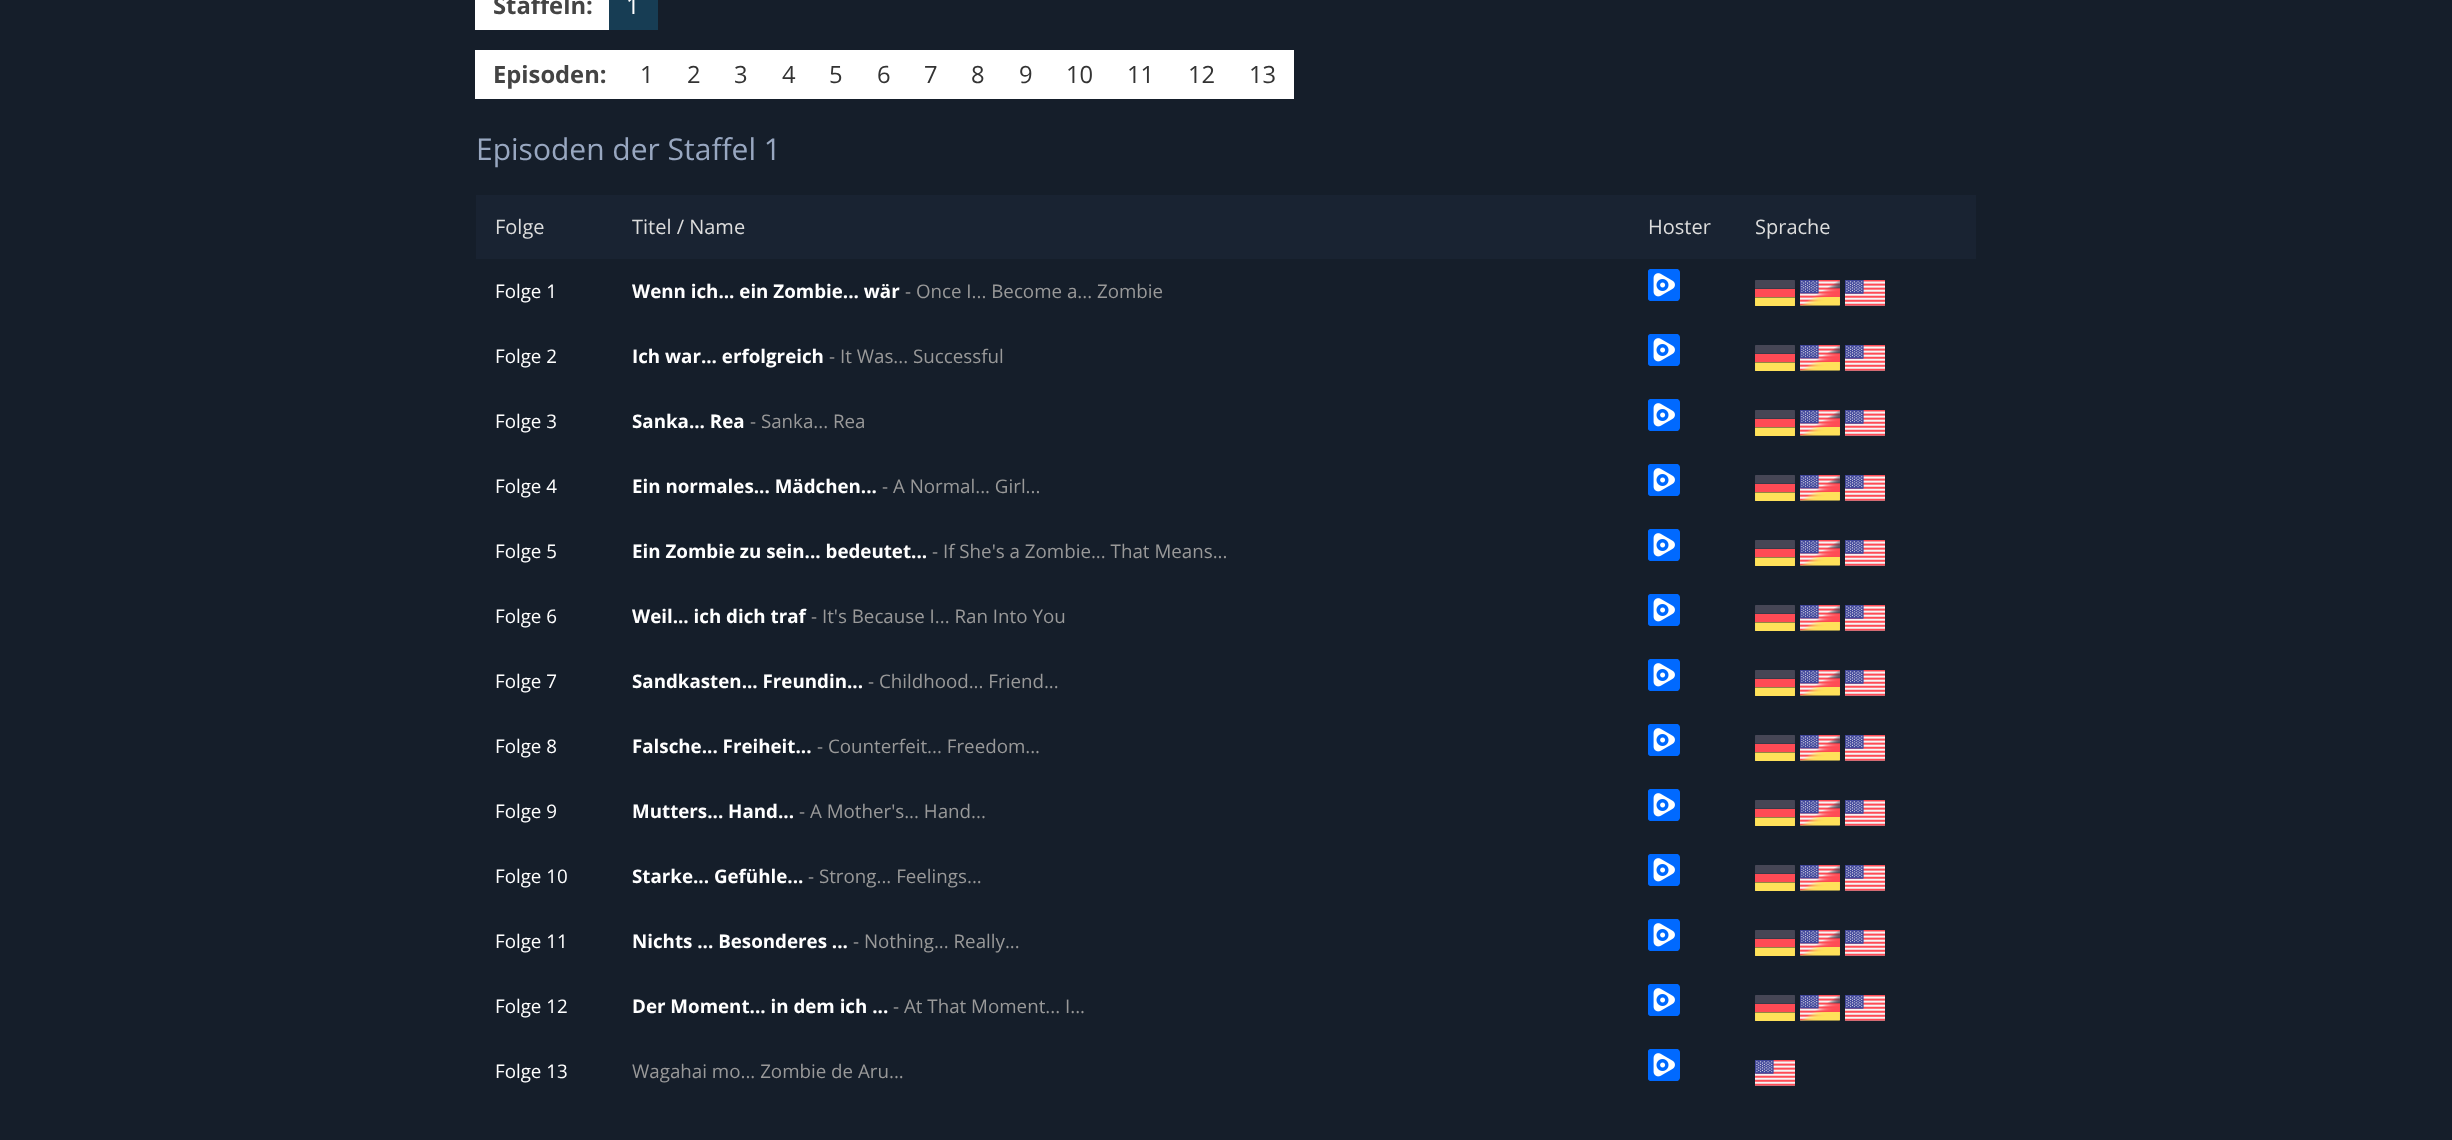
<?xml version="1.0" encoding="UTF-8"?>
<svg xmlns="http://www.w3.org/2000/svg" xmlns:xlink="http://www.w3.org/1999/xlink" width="2452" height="1140">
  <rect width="100%" height="100%" fill="#151e2a" />
  <rect x="475" width="134" height="30" fill="#ffffff" />
  <rect x="609" width="49" height="30" fill="#173d54" />
  <rect x="475" y="50" width="819" height="49" fill="#ffffff" />
  <rect x="476" y="195" width="1500" height="64" fill="#192332" />
  <image x="1648" y="269" width="32" height="32" xlink:href="image1.png" />
  <image x="1755" y="280" width="40" height="26" xlink:href="image2.png" />
  <image x="1800" y="280" width="40" height="26" xlink:href="image3.png" />
  <image x="1845" y="280" width="40" height="26" xlink:href="image4.png" />
  <image x="1648" y="334" width="32" height="32" xlink:href="image1.png" />
  <image x="1755" y="345" width="40" height="26" xlink:href="image2.png" />
  <image x="1800" y="345" width="40" height="26" xlink:href="image5.png" />
  <image x="1845" y="345" width="40" height="26" xlink:href="image4.png" />
  <image x="1648" y="399" width="32" height="32" xlink:href="image1.png" />
  <image x="1755" y="410" width="40" height="26" xlink:href="image2.png" />
  <image x="1800" y="410" width="40" height="26" xlink:href="image3.png" />
  <image x="1845" y="410" width="40" height="26" xlink:href="image4.png" />
  <image x="1648" y="464" width="32" height="32" xlink:href="image1.png" />
  <image x="1755" y="475" width="40" height="26" xlink:href="image2.png" />
  <image x="1800" y="475" width="40" height="26" xlink:href="image3.png" />
  <image x="1845" y="475" width="40" height="26" xlink:href="image4.png" />
  <image x="1648" y="529" width="32" height="32" xlink:href="image1.png" />
  <image x="1755" y="540" width="40" height="26" xlink:href="image2.png" />
  <image x="1800" y="540" width="40" height="26" xlink:href="image3.png" />
  <image x="1845" y="540" width="40" height="26" xlink:href="image4.png" />
  <image x="1648" y="594" width="32" height="32" xlink:href="image1.png" />
  <image x="1755" y="605" width="40" height="26" xlink:href="image2.png" />
  <image x="1800" y="605" width="40" height="26" xlink:href="image6.png" />
  <image x="1845" y="605" width="40" height="26" xlink:href="image4.png" />
  <image x="1648" y="659" width="32" height="32" xlink:href="image1.png" />
  <image x="1755" y="670" width="40" height="26" xlink:href="image2.png" />
  <image x="1800" y="670" width="40" height="26" xlink:href="image3.png" />
  <image x="1845" y="670" width="40" height="26" xlink:href="image4.png" />
  <image x="1648" y="724" width="32" height="32" xlink:href="image1.png" />
  <image x="1755" y="735" width="40" height="26" xlink:href="image2.png" />
  <image x="1800" y="735" width="40" height="26" xlink:href="image3.png" />
  <image x="1845" y="735" width="40" height="26" xlink:href="image4.png" />
  <image x="1648" y="789" width="32" height="32" xlink:href="image1.png" />
  <image x="1755" y="800" width="40" height="26" xlink:href="image2.png" />
  <image x="1800" y="800" width="40" height="26" xlink:href="image3.png" />
  <image x="1845" y="800" width="40" height="26" xlink:href="image4.png" />
  <image x="1648" y="854" width="32" height="32" xlink:href="image1.png" />
  <image x="1755" y="865" width="40" height="26" xlink:href="image2.png" />
  <image x="1800" y="865" width="40" height="26" xlink:href="image7.png" />
  <image x="1845" y="865" width="40" height="26" xlink:href="image4.png" />
  <image x="1648" y="919" width="32" height="32" xlink:href="image1.png" />
  <image x="1755" y="930" width="40" height="26" xlink:href="image2.png" />
  <image x="1800" y="930" width="40" height="26" xlink:href="image3.png" />
  <image x="1845" y="930" width="40" height="26" xlink:href="image4.png" />
  <image x="1648" y="984" width="32" height="32" xlink:href="image1.png" />
  <image x="1755" y="995" width="40" height="26" xlink:href="image2.png" />
  <image x="1800" y="995" width="40" height="26" xlink:href="image3.png" />
  <image x="1845" y="995" width="40" height="26" xlink:href="image4.png" />
  <image x="1648" y="1049" width="32" height="32" xlink:href="image1.png" />
  <image x="1755" y="1060" width="40" height="26" xlink:href="image8.png" />
  <text x="493" y="14" style="font-family: Open Sans; font-size: 23.75px; font-weight: bold; fill: #444444">Staffeln:</text>
  <text x="626" y="14" style="font-family: Open Sans; font-size: 23.75px; fill: #ffffff">1</text>
  <text x="493" y="83" style="font-family: Open Sans; font-size: 23.75px; font-weight: bold; fill: #444444">Episoden:</text>
  <text x="640" y="83" style="font-family: Open Sans; font-size: 23.75px; fill: #333333">1</text>
  <text x="687" y="83" style="font-family: Open Sans; font-size: 23.75px; fill: #333333">2</text>
  <text x="734" y="83" style="font-family: Open Sans; font-size: 23.75px; fill: #333333">3</text>
  <text x="782" y="83" style="font-family: Open Sans; font-size: 23.75px; fill: #333333">4</text>
  <text x="829" y="83" style="font-family: Open Sans; font-size: 23.75px; fill: #333333">5</text>
  <text x="877" y="83" style="font-family: Open Sans; font-size: 23.75px; fill: #333333">6</text>
  <text x="924" y="83" style="font-family: Open Sans; font-size: 23.75px; fill: #333333">7</text>
  <text x="971" y="83" style="font-family: Open Sans; font-size: 23.75px; fill: #333333">8</text>
  <text x="1019" y="83" style="font-family: Open Sans; font-size: 23.75px; fill: #333333">9</text>
  <text x="1066" y="83" style="font-family: Open Sans; font-size: 23.75px; fill: #333333">10</text>
  <text x="1127" y="83" style="font-family: Open Sans; font-size: 23.75px; fill: #333333">11</text>
  <text x="1188" y="83" style="font-family: Open Sans; font-size: 23.75px; fill: #333333">12</text>
  <text x="1249" y="83" style="font-family: Open Sans; font-size: 23.75px; fill: #333333">13</text>
  <text x="476" y="160" style="font-family: Open Sans; font-size: 30px; fill: #98a7c0">Episoden der Staffel 1</text>
  <text x="495" y="234" style="font-family: Open Sans; font-size: 20px; fill: #dddddd">Folge</text>
  <text x="632" y="234" style="font-family: Open Sans; font-size: 20px; fill: #dddddd">Titel / Name</text>
  <text x="1648" y="234" style="font-family: Open Sans; font-size: 20px; fill: #dddddd">Hoster</text>
  <text x="1755" y="234" style="font-family: Open Sans; font-size: 20px; fill: #dddddd">Sprache</text>
  <text x="495" y="298" style="font-family: Open Sans; font-size: 18.75px; fill: #ffffff">Folge 1</text>
  <text x="632" y="298" style="font-family: Open Sans; font-size: 18.75px; font-weight: bold; fill: #ffffff">Wenn ich... ein Zombie... wär</text>
  <text x="905" y="298" style="font-family: Open Sans; font-size: 18.75px; fill: #999999">- Once I... Become a... Zombie</text>
  <text x="495" y="363" style="font-family: Open Sans; font-size: 18.75px; fill: #ffffff">Folge 2</text>
  <text x="632" y="363" style="font-family: Open Sans; font-size: 18.75px; font-weight: bold; fill: #ffffff">Ich war... erfolgreich</text>
  <text x="829" y="363" style="font-family: Open Sans; font-size: 18.75px; fill: #999999">- It Was... Successful</text>
  <text x="495" y="428" style="font-family: Open Sans; font-size: 18.75px; fill: #ffffff">Folge 3</text>
  <text x="632" y="428" style="font-family: Open Sans; font-size: 18.75px; font-weight: bold; fill: #ffffff">Sanka... Rea</text>
  <text x="750" y="428" style="font-family: Open Sans; font-size: 18.75px; fill: #999999">- Sanka... Rea</text>
  <text x="495" y="493" style="font-family: Open Sans; font-size: 18.75px; fill: #ffffff">Folge 4</text>
  <text x="632" y="493" style="font-family: Open Sans; font-size: 18.75px; font-weight: bold; fill: #ffffff">Ein normales... Mädchen...</text>
  <text x="882" y="493" style="font-family: Open Sans; font-size: 18.75px; fill: #999999">- A Normal... Girl...</text>
  <text x="495" y="558" style="font-family: Open Sans; font-size: 18.75px; fill: #ffffff">Folge 5</text>
  <text x="632" y="558" style="font-family: Open Sans; font-size: 18.75px; font-weight: bold; fill: #ffffff">Ein Zombie zu sein... bedeutet...</text>
  <text x="932" y="558" style="font-family: Open Sans; font-size: 18.75px; fill: #999999">- If She's a Zombie... That Means...</text>
  <text x="495" y="623" style="font-family: Open Sans; font-size: 18.75px; fill: #ffffff">Folge 6</text>
  <text x="632" y="623" style="font-family: Open Sans; font-size: 18.75px; font-weight: bold; fill: #ffffff">Weil... ich dich traf</text>
  <text x="811" y="623" style="font-family: Open Sans; font-size: 18.75px; fill: #999999">- It's Because I... Ran Into You</text>
  <text x="495" y="688" style="font-family: Open Sans; font-size: 18.75px; fill: #ffffff">Folge 7</text>
  <text x="632" y="688" style="font-family: Open Sans; font-size: 18.75px; font-weight: bold; fill: #ffffff">Sandkasten... Freundin...</text>
  <text x="868" y="688" style="font-family: Open Sans; font-size: 18.75px; fill: #999999">- Childhood... Friend...</text>
  <text x="495" y="753" style="font-family: Open Sans; font-size: 18.75px; fill: #ffffff">Folge 8</text>
  <text x="632" y="753" style="font-family: Open Sans; font-size: 18.75px; font-weight: bold; fill: #ffffff">Falsche... Freiheit...</text>
  <text x="817" y="753" style="font-family: Open Sans; font-size: 18.75px; fill: #999999">- Counterfeit... Freedom...</text>
  <text x="495" y="818" style="font-family: Open Sans; font-size: 18.75px; fill: #ffffff">Folge 9</text>
  <text x="632" y="818" style="font-family: Open Sans; font-size: 18.75px; font-weight: bold; fill: #ffffff">Mutters... Hand...</text>
  <text x="799" y="818" style="font-family: Open Sans; font-size: 18.75px; fill: #999999">- A Mother's... Hand...</text>
  <text x="495" y="883" style="font-family: Open Sans; font-size: 18.75px; fill: #ffffff">Folge 10</text>
  <text x="632" y="883" style="font-family: Open Sans; font-size: 18.75px; font-weight: bold; fill: #ffffff">Starke... Gefühle...</text>
  <text x="808" y="883" style="font-family: Open Sans; font-size: 18.75px; fill: #999999">- Strong... Feelings...</text>
  <text x="495" y="948" style="font-family: Open Sans; font-size: 18.75px; fill: #ffffff">Folge 11</text>
  <text x="632" y="948" style="font-family: Open Sans; font-size: 18.75px; font-weight: bold; fill: #ffffff">Nichts ... Besonderes ...</text>
  <text x="853" y="948" style="font-family: Open Sans; font-size: 18.75px; fill: #999999">- Nothing... Really...</text>
  <text x="495" y="1013" style="font-family: Open Sans; font-size: 18.75px; fill: #ffffff">Folge 12</text>
  <text x="632" y="1013" style="font-family: Open Sans; font-size: 18.75px; font-weight: bold; fill: #ffffff">Der Moment... in dem ich ...</text>
  <text x="893" y="1013" style="font-family: Open Sans; font-size: 18.75px; fill: #999999">- At That Moment... I...</text>
  <text x="495" y="1078" style="font-family: Open Sans; font-size: 18.75px; fill: #ffffff">Folge 13</text>
  <text x="632" y="1078" style="font-family: Open Sans; font-size: 18.75px; fill: #999999">Wagahai mo... Zombie de Aru...</text>
</svg>
